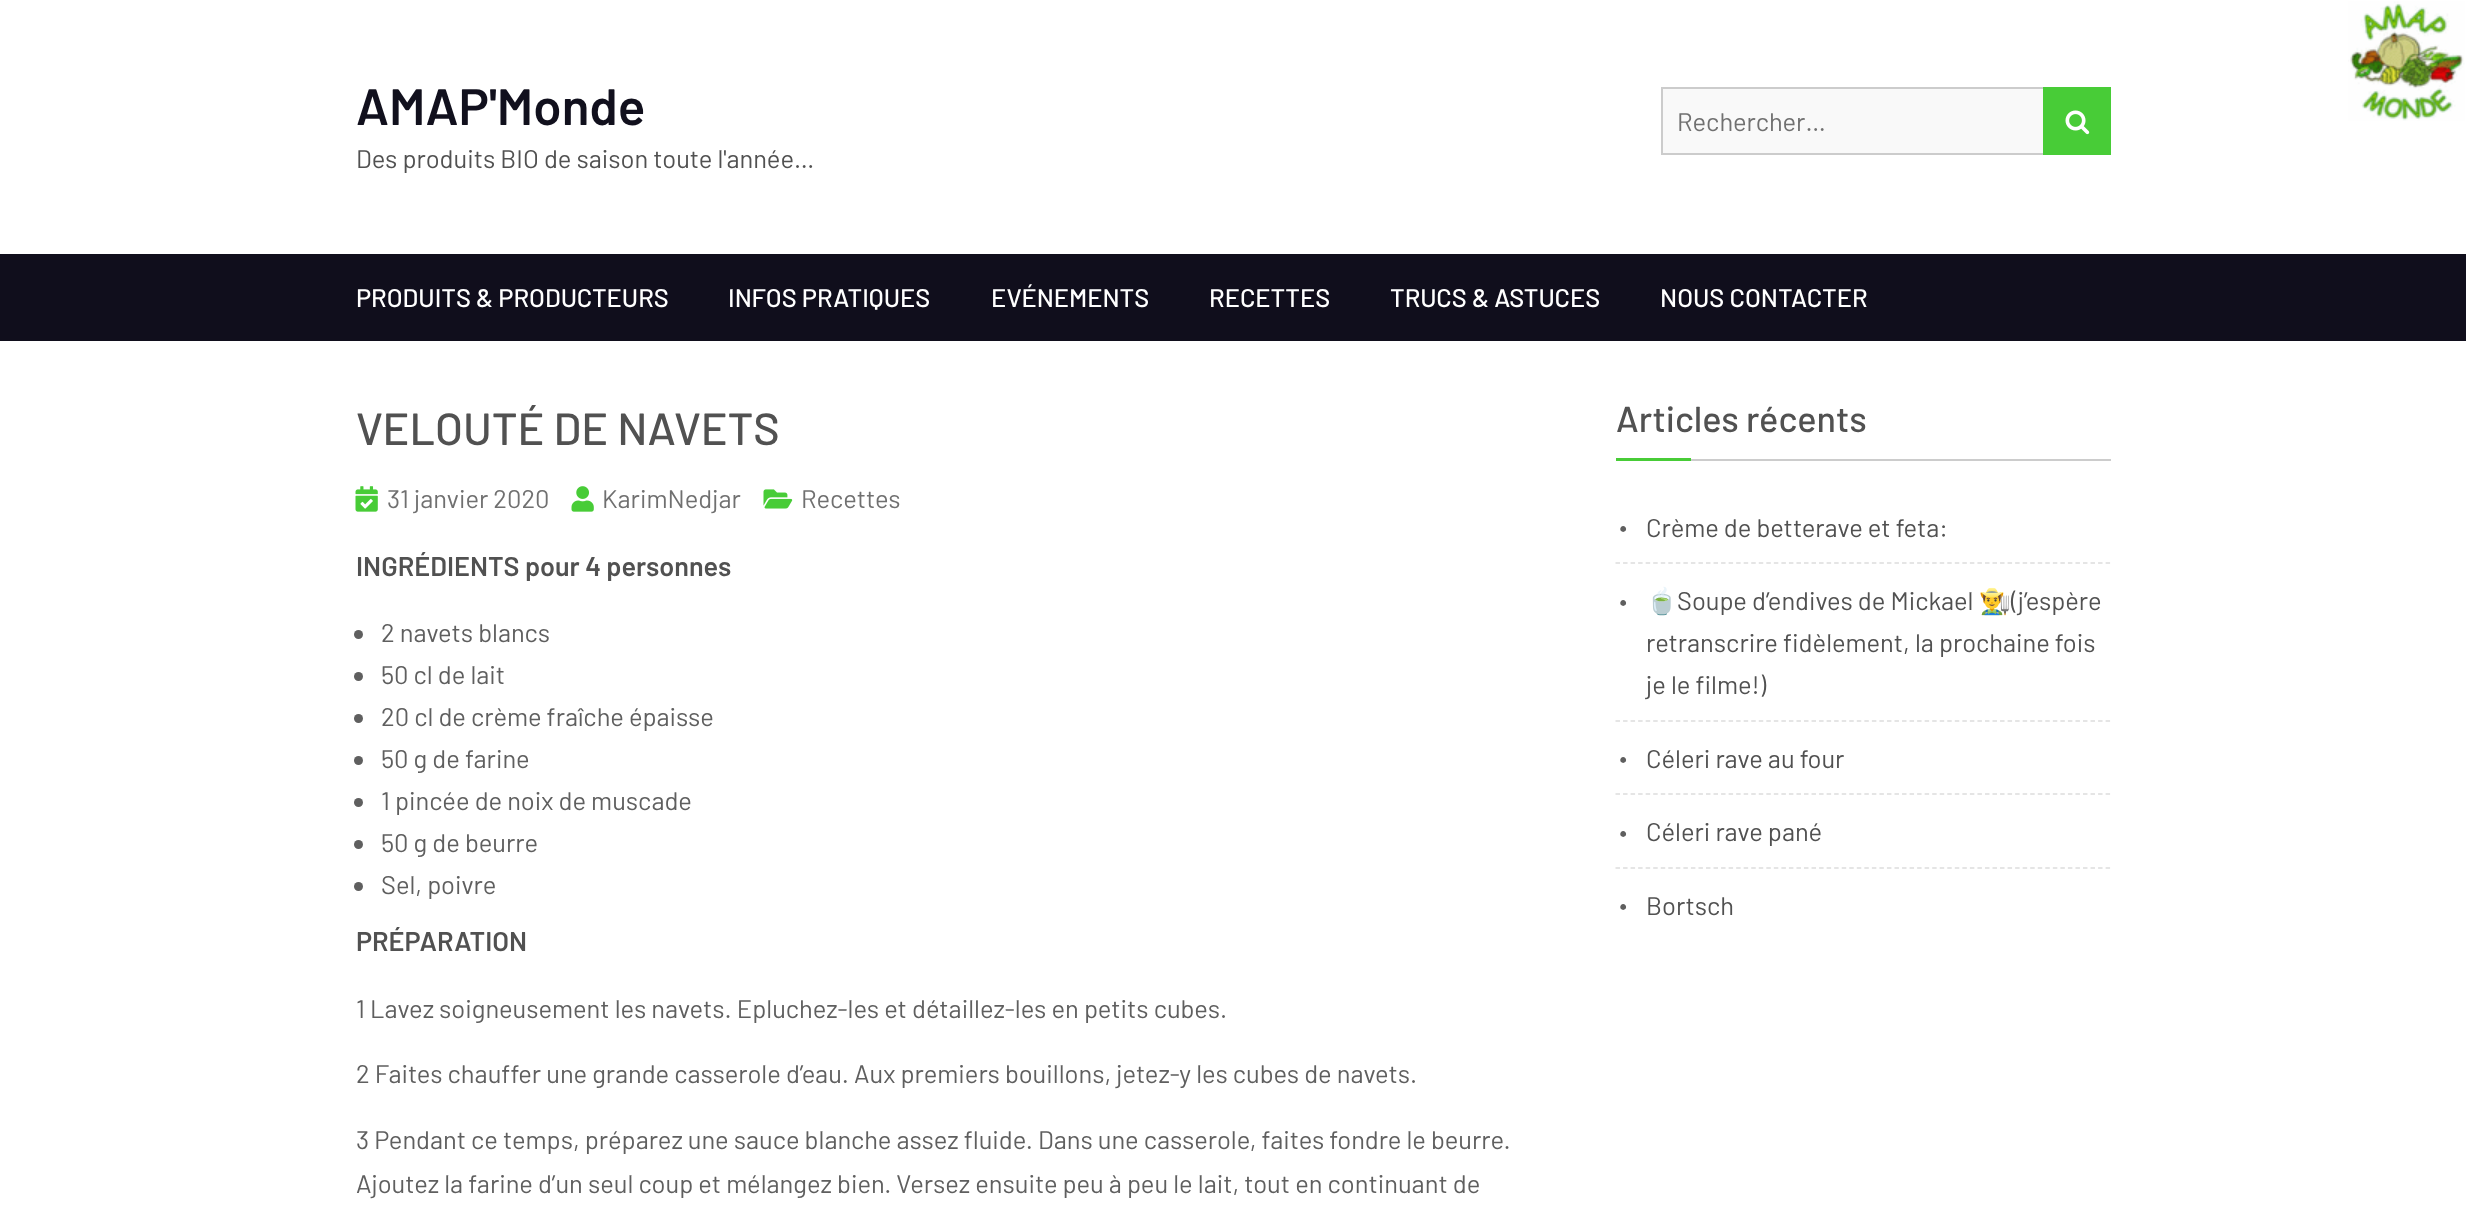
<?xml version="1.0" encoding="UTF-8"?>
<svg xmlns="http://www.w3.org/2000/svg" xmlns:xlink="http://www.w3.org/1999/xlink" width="2466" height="1218">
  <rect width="100%" height="100%" fill="#ffffff" />
  <image x="2348" y="1" width="117" height="120" xlink:href="image1.png" />
  <rect x="1663" y="89" width="380" height="64" fill="#f9f9f9" />
  <rect x="1662" y="88" width="448" height="66" fill="none" stroke="#cccccc" stroke-width="2" />
  <rect x="2043" y="87" width="68" height="68" fill="#48cc37" />
  <image x="2065" y="110" width="25" height="25" xlink:href="image2.png" />
  <rect y="254" width="2466" height="87" fill="#100e1c" />
  <image x="355" y="486" width="23" height="26" xlink:href="image3.png" />
  <image x="571" y="486" width="23" height="26" xlink:href="image4.png" />
  <image x="763" y="489" width="30" height="20" xlink:href="image5.png" />
  <circle cx="358.5" cy="634.5" r="4.5" fill="#5f5f5f" />
  <circle cx="358.5" cy="676.5" r="4.5" fill="#5f5f5f" />
  <circle cx="358.5" cy="718.5" r="4.5" fill="#5f5f5f" />
  <circle cx="358.5" cy="760.5" r="4.5" fill="#5f5f5f" />
  <circle cx="358.5" cy="802.5" r="4.5" fill="#5f5f5f" />
  <circle cx="358.5" cy="844.5" r="4.5" fill="#5f5f5f" />
  <circle cx="358.5" cy="886.5" r="4.5" fill="#5f5f5f" />
  <rect x="1691" y="459" width="420" height="2" fill="#cccccc" />
  <rect x="1616" y="458" width="75" height="3" fill="#48cc37" />
  <path d="M 1615.5 563 h 495" fill="none" stroke="#dddddd" stroke-width="1.5" stroke-dasharray="4.5 3.04" />
  <path d="M 1615.5 721 h 495" fill="none" stroke="#dddddd" stroke-width="1.5" stroke-dasharray="4.5 3.04" />
  <path d="M 1615.5 794 h 495" fill="none" stroke="#dddddd" stroke-width="1.5" stroke-dasharray="4.5 3.04" />
  <path d="M 1615.5 868 h 495" fill="none" stroke="#dddddd" stroke-width="1.5" stroke-dasharray="4.5 3.04" />
  <text x="356" y="125" style="font-family: Barlow; font-size: 51px; font-weight: 600; fill: #11101d">AMAP'Monde</text>
  <text x="356" y="168" style="font-family: Barlow; font-size: 25.5px; fill: #515151">Des produits BIO de saison toute l'année…</text>
  <text x="1677" y="131" style="font-family: Barlow; font-size: 25.5px; fill: #707070">Rechercher…</text>
  <text x="356" y="307" style="font-family: Barlow; font-size: 25.5px; font-weight: 500; fill: #ffffff">PRODUITS &amp; PRODUCTEURS</text>
  <text x="728" y="307" style="font-family: Barlow; font-size: 25.5px; font-weight: 500; fill: #ffffff">INFOS PRATIQUES</text>
  <text x="991" y="307" style="font-family: Barlow; font-size: 25.5px; font-weight: 500; fill: #ffffff">EVÉNEMENTS</text>
  <text x="1209" y="307" style="font-family: Barlow; font-size: 25.5px; font-weight: 500; fill: #ffffff">RECETTES</text>
  <text x="1390" y="307" style="font-family: Barlow; font-size: 25.5px; font-weight: 500; fill: #ffffff">TRUCS &amp; ASTUCES</text>
  <text x="1660" y="307" style="font-family: Barlow; font-size: 25.5px; font-weight: 500; fill: #ffffff">NOUS CONTACTER</text>
  <text x="356" y="445" style="font-family: Barlow; font-size: 45px; font-weight: 500; fill: #515151">VELOUTÉ DE NAVETS</text>
  <text x="387" y="508" style="font-family: Barlow; font-size: 25.5px; fill: #707070">31 janvier 2020</text>
  <text x="602" y="508" style="font-family: Barlow; font-size: 25.5px; fill: #707070">KarimNedjar</text>
  <text x="801" y="508" style="font-family: Barlow; font-size: 25.5px; fill: #707070">Recettes</text>
  <text x="356" y="576" style="font-family: Barlow; font-size: 27px; font-weight: 600; fill: #515151">INGRÉDIENTS pour 4 personnes</text>
  <text x="381" y="642" style="font-family: Barlow; font-size: 25.5px; fill: #5f5f5f">2 navets blancs</text>
  <text x="381" y="684" style="font-family: Barlow; font-size: 25.5px; fill: #5f5f5f">50 cl de lait</text>
  <text x="381" y="726" style="font-family: Barlow; font-size: 25.5px; fill: #5f5f5f">20 cl de crème fraîche épaisse</text>
  <text x="381" y="768" style="font-family: Barlow; font-size: 25.5px; fill: #5f5f5f">50 g de farine</text>
  <text x="381" y="810" style="font-family: Barlow; font-size: 25.5px; fill: #5f5f5f">1 pincée de noix de muscade</text>
  <text x="381" y="852" style="font-family: Barlow; font-size: 25.5px; fill: #5f5f5f">50 g de beurre</text>
  <text x="381" y="894" style="font-family: Barlow; font-size: 25.5px; fill: #5f5f5f">Sel, poivre</text>
  <text x="356" y="951" style="font-family: Barlow; font-size: 27px; font-weight: 600; fill: #515151">PRÉPARATION</text>
  <text x="356" y="1018" style="font-family: Barlow; font-size: 25.5px; fill: #5f5f5f">1 Lavez soigneusement les navets. Epluchez-les et détaillez-les en petits cubes.</text>
  <text x="356" y="1083" style="font-family: Barlow; font-size: 25.5px; fill: #5f5f5f">2 Faites chauffer une grande casserole d’eau. Aux premiers bouillons, jetez-y les cubes de navets.</text>
  <text x="356" y="1149" style="font-family: Barlow; font-size: 25.5px; fill: #5f5f5f">3 Pendant ce temps, préparez une sauce blanche assez fluide. Dans une casserole, faites fondre le beurre.</text>
  <text x="356" y="1193" style="font-family: Barlow; font-size: 25.5px; fill: #5f5f5f">Ajoutez la farine d’un seul coup et mélangez bien. Versez ensuite peu à peu le lait, tout en continuant de</text>
  <text x="1616" y="432" style="font-family: Barlow; font-size: 36px; font-weight: 500; fill: #515151">Articles récents</text>
  <text x="1616" y="532" style="font-family: Barlow; font-size: 52px; fill: #5f5f5f">.</text>
  <text x="1646" y="537" style="font-family: Barlow; font-size: 25.5px; fill: #515151">Crème de betterave et feta:</text>
  <text x="1616" y="606" style="font-family: Barlow; font-size: 52px; fill: #5f5f5f">.</text>
  <text x="1646" y="610" style="font-family: Noto Color Emoji; font-size: 25.5px; fill: #515151">🍵</text>
  <text x="1677" y="610" style="font-family: Barlow; font-size: 25.5px; fill: #515151">Soupe d’endives de Mickael</text>
  <text x="1979" y="610" style="font-family: Noto Color Emoji; font-size: 25.5px; fill: #515151">👨‍🌾</text>
  <text x="2011" y="610" style="font-family: Barlow; font-size: 25.5px; fill: #515151">(j’espère</text>
  <text x="1646" y="652" style="font-family: Barlow; font-size: 25.5px; fill: #515151">retranscrire fidèlement, la prochaine fois</text>
  <text x="1646" y="694" style="font-family: Barlow; font-size: 25.5px; fill: #515151">je le filme!)</text>
  <text x="1616" y="763" style="font-family: Barlow; font-size: 52px; fill: #5f5f5f">.</text>
  <text x="1646" y="768" style="font-family: Barlow; font-size: 25.5px; fill: #515151">Céleri rave au four</text>
  <text x="1616" y="837" style="font-family: Barlow; font-size: 52px; fill: #5f5f5f">.</text>
  <text x="1646" y="841" style="font-family: Barlow; font-size: 25.5px; fill: #515151">Céleri rave pané</text>
  <text x="1616" y="910" style="font-family: Barlow; font-size: 52px; fill: #5f5f5f">.</text>
  <text x="1646" y="915" style="font-family: Barlow; font-size: 25.5px; fill: #515151">Bortsch</text>
</svg>
